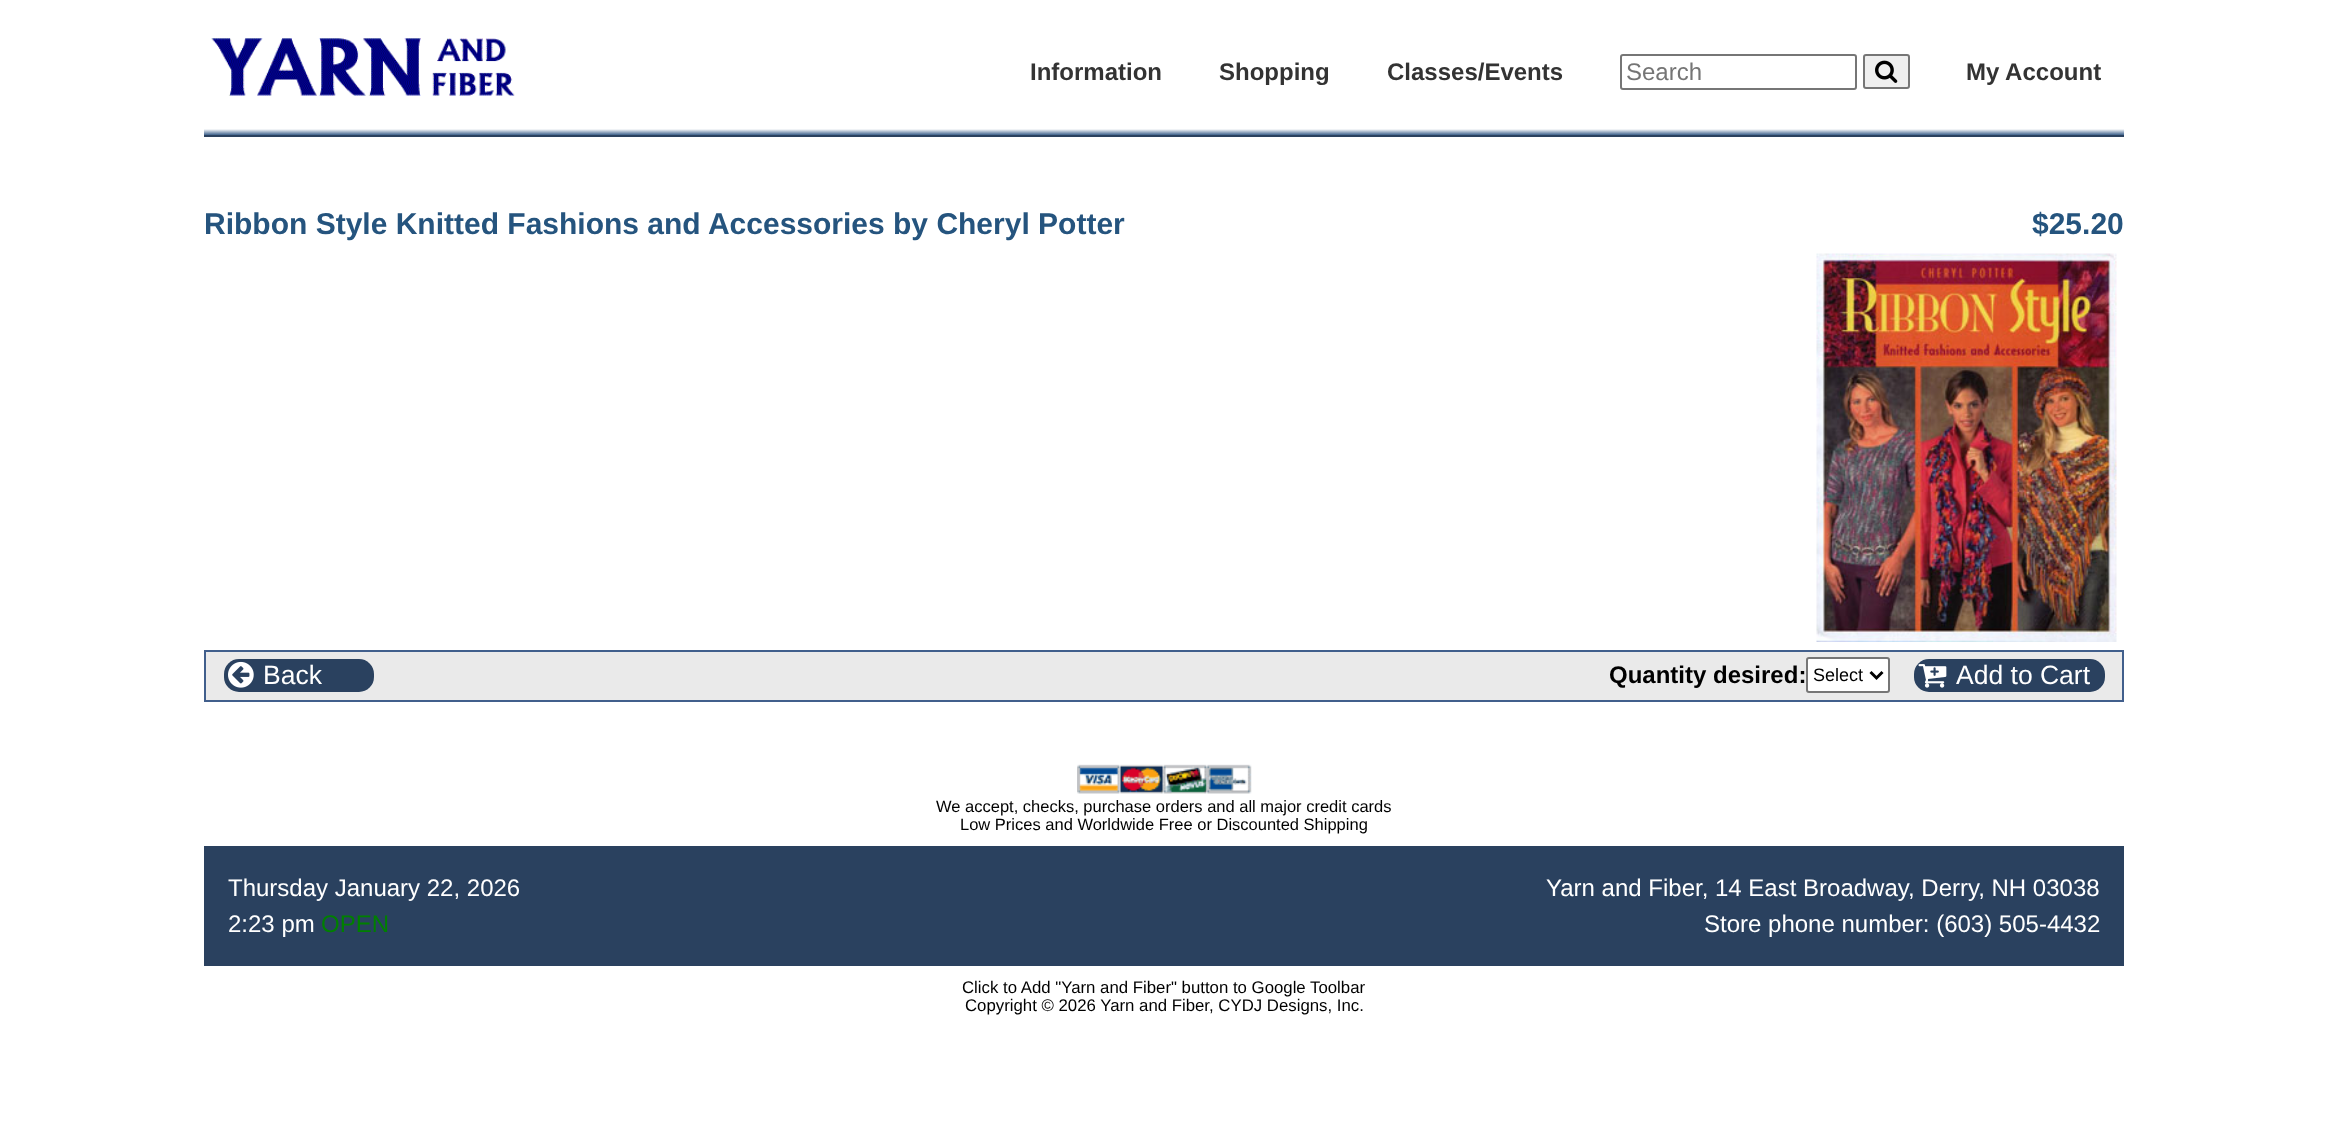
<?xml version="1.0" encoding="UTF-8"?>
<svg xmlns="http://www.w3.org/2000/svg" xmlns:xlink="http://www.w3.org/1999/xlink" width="2328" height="1136">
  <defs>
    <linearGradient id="g1" gradientUnits="userSpaceOnUse" x1="1164" y1="129" x2="1164" y2="135"><stop offset="0" stop-color="#ffffff" /><stop offset="1" stop-color="#3d618c" /></linearGradient>
  </defs>
  <rect width="100%" height="100%" fill="#ffffff" />
  <image x="211" y="38" width="304" height="58" xlink:href="image1.png" />
  <rect x="1621" y="55" width="235" height="34" rx="2" fill="none" stroke="#767676" stroke-width="2" />
  <rect x="1864" y="55" width="45" height="33" rx="2" fill="#efefef" stroke="#767676" stroke-width="2" />
  <image x="1875" y="60" width="23" height="23" xlink:href="image2.png" />
  <rect x="204" y="129" width="1920" height="6" fill="url(#g1)" />
  <rect x="204" y="135" width="1920" height="2" fill="#2a415f" />
  <image x="1816" y="253" width="301" height="389" xlink:href="image3.png" />
  <rect x="205" y="651" width="1918" height="50" fill="#eaeaea" stroke="#415f8c" stroke-width="2" />
  <rect x="224" y="659" width="150" height="33" rx="15" fill="#2a415f" />
  <image x="228" y="661" width="26" height="27" xlink:href="image4.png" />
  <rect x="1807" y="658" width="82" height="34" rx="2" fill="#ffffff" stroke="#767676" stroke-width="2" />
  <path d="M 1870.5 672 l 6 6 l 6 -6" fill="none" stroke="#000000" stroke-width="3" />
  <rect x="1914" y="659" width="191" height="33" rx="15" fill="#2a415f" />
  <image x="1918" y="664" width="29" height="24" xlink:href="image5.png" />
  <image x="1077" y="764" width="175" height="30" xlink:href="image6.png" />
  <rect x="204" y="846" width="1920" height="120" fill="#2a415f" />
  <text x="1030" y="80" style="font-family: Liberation Sans; font-size: 24px; font-weight: bold; fill: #333333">Information</text>
  <text x="1219" y="80" style="font-family: Liberation Sans; font-size: 24px; font-weight: bold; fill: #333333">Shopping</text>
  <text x="1387" y="80" style="font-family: Liberation Sans; font-size: 24px; font-weight: bold; fill: #333333">Classes/Events</text>
  <text x="1626" y="80" style="font-family: Liberation Sans; font-size: 24px; fill: #757575">Search</text>
  <text x="1966" y="80" style="font-family: Liberation Sans; font-size: 24px; font-weight: bold; fill: #333333">My Account</text>
  <text x="204" y="234" style="font-family: Liberation Sans; font-size: 30px; font-weight: bold; fill: #25547e">Ribbon Style Knitted Fashions and Accessories by Cheryl Potter</text>
  <text x="2032" y="234" style="font-family: Liberation Sans; font-size: 30px; font-weight: bold; fill: #25547e">$25.20</text>
  <text x="263" y="684" style="font-family: Liberation Sans; font-size: 26.5px; fill: #ffffff">Back</text>
  <text x="1609" y="683" style="font-family: Liberation Sans; font-size: 24px; font-weight: bold; fill: #000000">Quantity desired:</text>
  <text x="1813" y="681" style="font-family: Liberation Sans; font-size: 18px; fill: #000000">Select</text>
  <text x="1956" y="684" style="font-family: Liberation Sans; font-size: 26.5px; fill: #ffffff">Add to Cart</text>
  <text x="936" y="812" style="font-family: Liberation Sans; font-size: 16.5px; fill: #000000">We accept, checks, purchase orders and all major credit cards</text>
  <text x="960" y="830" style="font-family: Liberation Sans; font-size: 16.5px; fill: #000000">Low Prices and Worldwide Free or Discounted Shipping</text>
  <text x="228" y="896" style="font-family: Liberation Sans; font-size: 24px; fill: #ffffff">Thursday January 22, 2026</text>
  <text x="228" y="932" style="font-family: Liberation Sans; font-size: 24px; fill: #ffffff">2:23 pm</text>
  <text x="321" y="932" style="font-family: Liberation Sans; font-size: 24px; fill: #008000">OPEN</text>
  <text x="1546" y="896" style="font-family: Liberation Sans; font-size: 24px; fill: #ffffff">Yarn and Fiber, 14 East Broadway, Derry, NH 03038</text>
  <text x="1704" y="932" style="font-family: Liberation Sans; font-size: 24px; fill: #ffffff">Store phone number: (603) 505-4432</text>
  <text x="962" y="993" style="font-family: Liberation Sans; font-size: 16.8px; fill: #000000">Click to Add "Yarn and Fiber" button to Google Toolbar</text>
  <text x="965" y="1011" style="font-family: Liberation Sans; font-size: 16.8px; fill: #000000">Copyright © 2026 Yarn and Fiber, CYDJ Designs, Inc.</text>
</svg>
